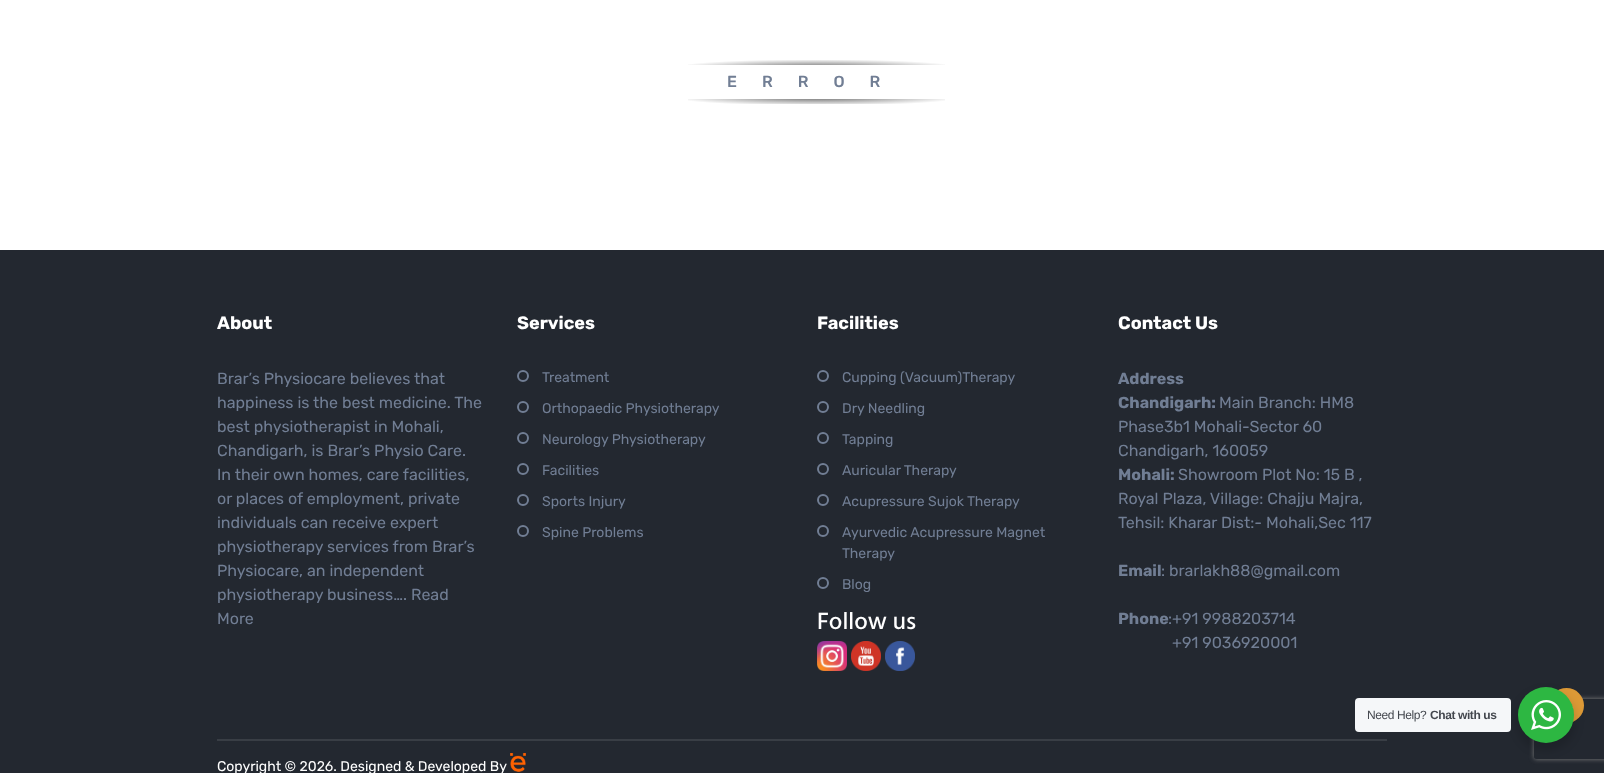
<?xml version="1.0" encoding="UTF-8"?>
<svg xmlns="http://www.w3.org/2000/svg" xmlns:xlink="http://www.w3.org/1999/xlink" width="1604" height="773">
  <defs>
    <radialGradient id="g1" gradientUnits="userSpaceOnUse" cx="0" cy="0" r="1" gradientTransform="matrix(182 0 0 11 817 68)"><stop offset="0" stop-color="#000000" stop-opacity="0.6" /><stop offset="0.8" stop-color="#000000" stop-opacity="0" /></radialGradient>
    <radialGradient id="g2" gradientUnits="userSpaceOnUse" cx="0" cy="0" r="1" gradientTransform="matrix(182 0 0 11 817 97)"><stop offset="0" stop-color="#000000" stop-opacity="0.6" /><stop offset="0.8" stop-color="#000000" stop-opacity="0" /></radialGradient>
    <clipPath id="clip1"><path d="M 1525 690 h 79 v 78 h -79 z m 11 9 h 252 c 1 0 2 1 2 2 v 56 c 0 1 -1 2 -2 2 h -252 c -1 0 -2 -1 -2 -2 v -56 c 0 -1 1 -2 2 -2 z" clip-rule="evenodd" /></clipPath>
  </defs>
  <rect width="100%" height="100%" fill="#ffffff" />
  <rect x="688" y="60" width="257" height="5" fill="url(#g1)" />
  <rect x="688" y="99" width="257" height="5" fill="url(#g2)" />
  <rect y="250" width="1604" height="523" fill="#232830" />
  <rect x="217" y="739" width="1170" height="2" fill="#393e45" />
  <circle cx="523" cy="376" r="5" fill="none" stroke="#717e94" stroke-width="2" />
  <circle cx="523" cy="407" r="5" fill="none" stroke="#717e94" stroke-width="2" />
  <circle cx="523" cy="438" r="5" fill="none" stroke="#717e94" stroke-width="2" />
  <circle cx="523" cy="469" r="5" fill="none" stroke="#717e94" stroke-width="2" />
  <circle cx="523" cy="500" r="5" fill="none" stroke="#717e94" stroke-width="2" />
  <circle cx="523" cy="531" r="5" fill="none" stroke="#717e94" stroke-width="2" />
  <circle cx="823" cy="376" r="5" fill="none" stroke="#717e94" stroke-width="2" />
  <circle cx="823" cy="407" r="5" fill="none" stroke="#717e94" stroke-width="2" />
  <circle cx="823" cy="438" r="5" fill="none" stroke="#717e94" stroke-width="2" />
  <circle cx="823" cy="469" r="5" fill="none" stroke="#717e94" stroke-width="2" />
  <circle cx="823" cy="500" r="5" fill="none" stroke="#717e94" stroke-width="2" />
  <circle cx="823" cy="531" r="5" fill="none" stroke="#717e94" stroke-width="2" />
  <circle cx="823" cy="583" r="5" fill="none" stroke="#717e94" stroke-width="2" />
  <image x="817" y="641" width="30" height="30" xlink:href="image1.png" />
  <image x="851" y="641" width="30" height="30" xlink:href="image2.png" />
  <image x="885" y="641" width="30" height="30" xlink:href="image3.png" />
  <image x="510" y="753" width="16" height="19" xlink:href="image4.png" />
  <g clip-path="url(#clip1)">
    <rect x="1534" y="699" width="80" height="60" rx="2" fill="#808080" filter="blur(2.5px)" />
  </g>
  <circle cx="1566.5" cy="705.5" r="17.5" fill="#dc9936" />
  <image x="1572" y="707" width="1" height="1" xlink:href="image5.png" />
  <rect x="1516" y="691" width="60" height="60" rx="30" fill="#000000" fill-opacity="0.14" filter="blur(4px)" />
  <rect x="1355" y="698" width="156" height="34" rx="4" fill="#f5f7f9" />
  <circle cx="1546" cy="715" r="28" fill="#2db742" />
  <image x="1531" y="700" width="30" height="30" xlink:href="image6.png" />
  <text x="727" y="87" style="font-family: Rubik; font-size: 16px; font-weight: 500; letter-spacing: 25px; fill: #717e94">ERROR</text>
  <text x="217" y="329" style="font-family: Rubik; font-size: 18px; font-weight: bold; fill: #ffffff">About</text>
  <text x="217" y="384" style="font-family: Rubik; font-size: 16px; fill: #717e94">Brar’s Physiocare believes that</text>
  <text x="217" y="408" style="font-family: Rubik; font-size: 16px; fill: #717e94">happiness is the best medicine. The</text>
  <text x="217" y="432" style="font-family: Rubik; font-size: 16px; fill: #717e94">best physiotherapist in Mohali,</text>
  <text x="217" y="456" style="font-family: Rubik; font-size: 16px; fill: #717e94">Chandigarh, is Brar’s Physio Care.</text>
  <text x="217" y="480" style="font-family: Rubik; font-size: 16px; fill: #717e94">In their own homes, care facilities,</text>
  <text x="217" y="504" style="font-family: Rubik; font-size: 16px; fill: #717e94">or places of employment, private</text>
  <text x="217" y="528" style="font-family: Rubik; font-size: 16px; fill: #717e94">individuals can receive expert</text>
  <text x="217" y="552" style="font-family: Rubik; font-size: 16px; fill: #717e94">physiotherapy services from Brar’s</text>
  <text x="217" y="576" style="font-family: Rubik; font-size: 16px; fill: #717e94">Physiocare, an independent</text>
  <text x="217" y="600" style="font-family: Rubik; font-size: 16px; fill: #717e94">physiotherapy business…. Read</text>
  <text x="217" y="624" style="font-family: Rubik; font-size: 16px; fill: #717e94">More</text>
  <text x="517" y="329" style="font-family: Rubik; font-size: 18px; font-weight: bold; fill: #ffffff">Services</text>
  <text x="542" y="382" style="font-family: Rubik; font-size: 14px; fill: #717e94">Treatment</text>
  <text x="542" y="413" style="font-family: Rubik; font-size: 14px; fill: #717e94">Orthopaedic Physiotherapy</text>
  <text x="542" y="444" style="font-family: Rubik; font-size: 14px; fill: #717e94">Neurology Physiotherapy</text>
  <text x="542" y="475" style="font-family: Rubik; font-size: 14px; fill: #717e94">Facilities</text>
  <text x="542" y="506" style="font-family: Rubik; font-size: 14px; fill: #717e94">Sports Injury</text>
  <text x="542" y="537" style="font-family: Rubik; font-size: 14px; fill: #717e94">Spine Problems</text>
  <text x="817" y="329" style="font-family: Rubik; font-size: 18px; font-weight: bold; fill: #ffffff">Facilities</text>
  <text x="842" y="382" style="font-family: Rubik; font-size: 14px; fill: #717e94">Cupping (Vacuum)Therapy</text>
  <text x="842" y="413" style="font-family: Rubik; font-size: 14px; fill: #717e94">Dry Needling</text>
  <text x="842" y="444" style="font-family: Rubik; font-size: 14px; fill: #717e94">Tapping</text>
  <text x="842" y="475" style="font-family: Rubik; font-size: 14px; fill: #717e94">Auricular Therapy</text>
  <text x="842" y="506" style="font-family: Rubik; font-size: 14px; fill: #717e94">Acupressure Sujok Therapy</text>
  <text x="842" y="537" style="font-family: Rubik; font-size: 14px; fill: #717e94">Ayurvedic Acupressure Magnet</text>
  <text x="842" y="558" style="font-family: Rubik; font-size: 14px; fill: #717e94">Therapy</text>
  <text x="842" y="589" style="font-family: Rubik; font-size: 14px; fill: #717e94">Blog</text>
  <text x="817" y="629" style="font-family: Hind; font-size: 24px; font-weight: 500; fill: #ffffff">Follow us</text>
  <text x="1118" y="329" style="font-family: Rubik; font-size: 18px; font-weight: bold; fill: #ffffff">Contact Us</text>
  <text x="1118" y="384" style="font-family: Rubik; font-size: 16px; font-weight: bold; fill: #717e94">Address</text>
  <text x="1118" y="408" style="font-family: Rubik; font-size: 16px; font-weight: bold; fill: #717e94">Chandigarh:</text>
  <text x="1219" y="408" style="font-family: Rubik; font-size: 16px; fill: #717e94">Main Branch: HM8</text>
  <text x="1118" y="432" style="font-family: Rubik; font-size: 16px; fill: #717e94">Phase3b1 Mohali-Sector 60</text>
  <text x="1118" y="456" style="font-family: Rubik; font-size: 16px; fill: #717e94">Chandigarh, 160059</text>
  <text x="1118" y="480" style="font-family: Rubik; font-size: 16px; font-weight: bold; fill: #717e94">Mohali:</text>
  <text x="1178" y="480" style="font-family: Rubik; font-size: 16px; fill: #717e94">Showroom Plot No: 15 B ,</text>
  <text x="1118" y="504" style="font-family: Rubik; font-size: 16px; fill: #717e94">Royal Plaza, Village: Chajju Majra,</text>
  <text x="1118" y="528" style="font-family: Rubik; font-size: 16px; fill: #717e94">Tehsil: Kharar Dist:- Mohali,Sec 117</text>
  <text x="1118" y="576" style="font-family: Rubik; font-size: 16px; font-weight: bold; fill: #717e94">Email</text>
  <text x="1161" y="576" style="font-family: Rubik; font-size: 16px; fill: #717e94">: brarlakh88@gmail.com</text>
  <text x="1118" y="624" style="font-family: Rubik; font-size: 16px; font-weight: bold; fill: #717e94">Phone</text>
  <text x="1168" y="624" style="font-family: Rubik; font-size: 16px; fill: #717e94">:+91 9988203714</text>
  <text x="1172" y="648" style="font-family: Rubik; font-size: 16px; fill: #717e94">+91 9036920001</text>
  <text x="217" y="771" style="font-family: Rubik; font-size: 14px; fill: #ffffff">Copyright © 2026. Designed &amp; Developed By</text>
  <text x="1367" y="719" style="font-family: Liberation Sans; font-size: 12px; letter-spacing: -0.4px; fill: #43474e">Need Help?</text>
  <text x="1430" y="719" style="font-family: Liberation Sans; font-size: 12px; font-weight: bold; letter-spacing: -0.4px; fill: #43474e">Chat with us</text>
</svg>
